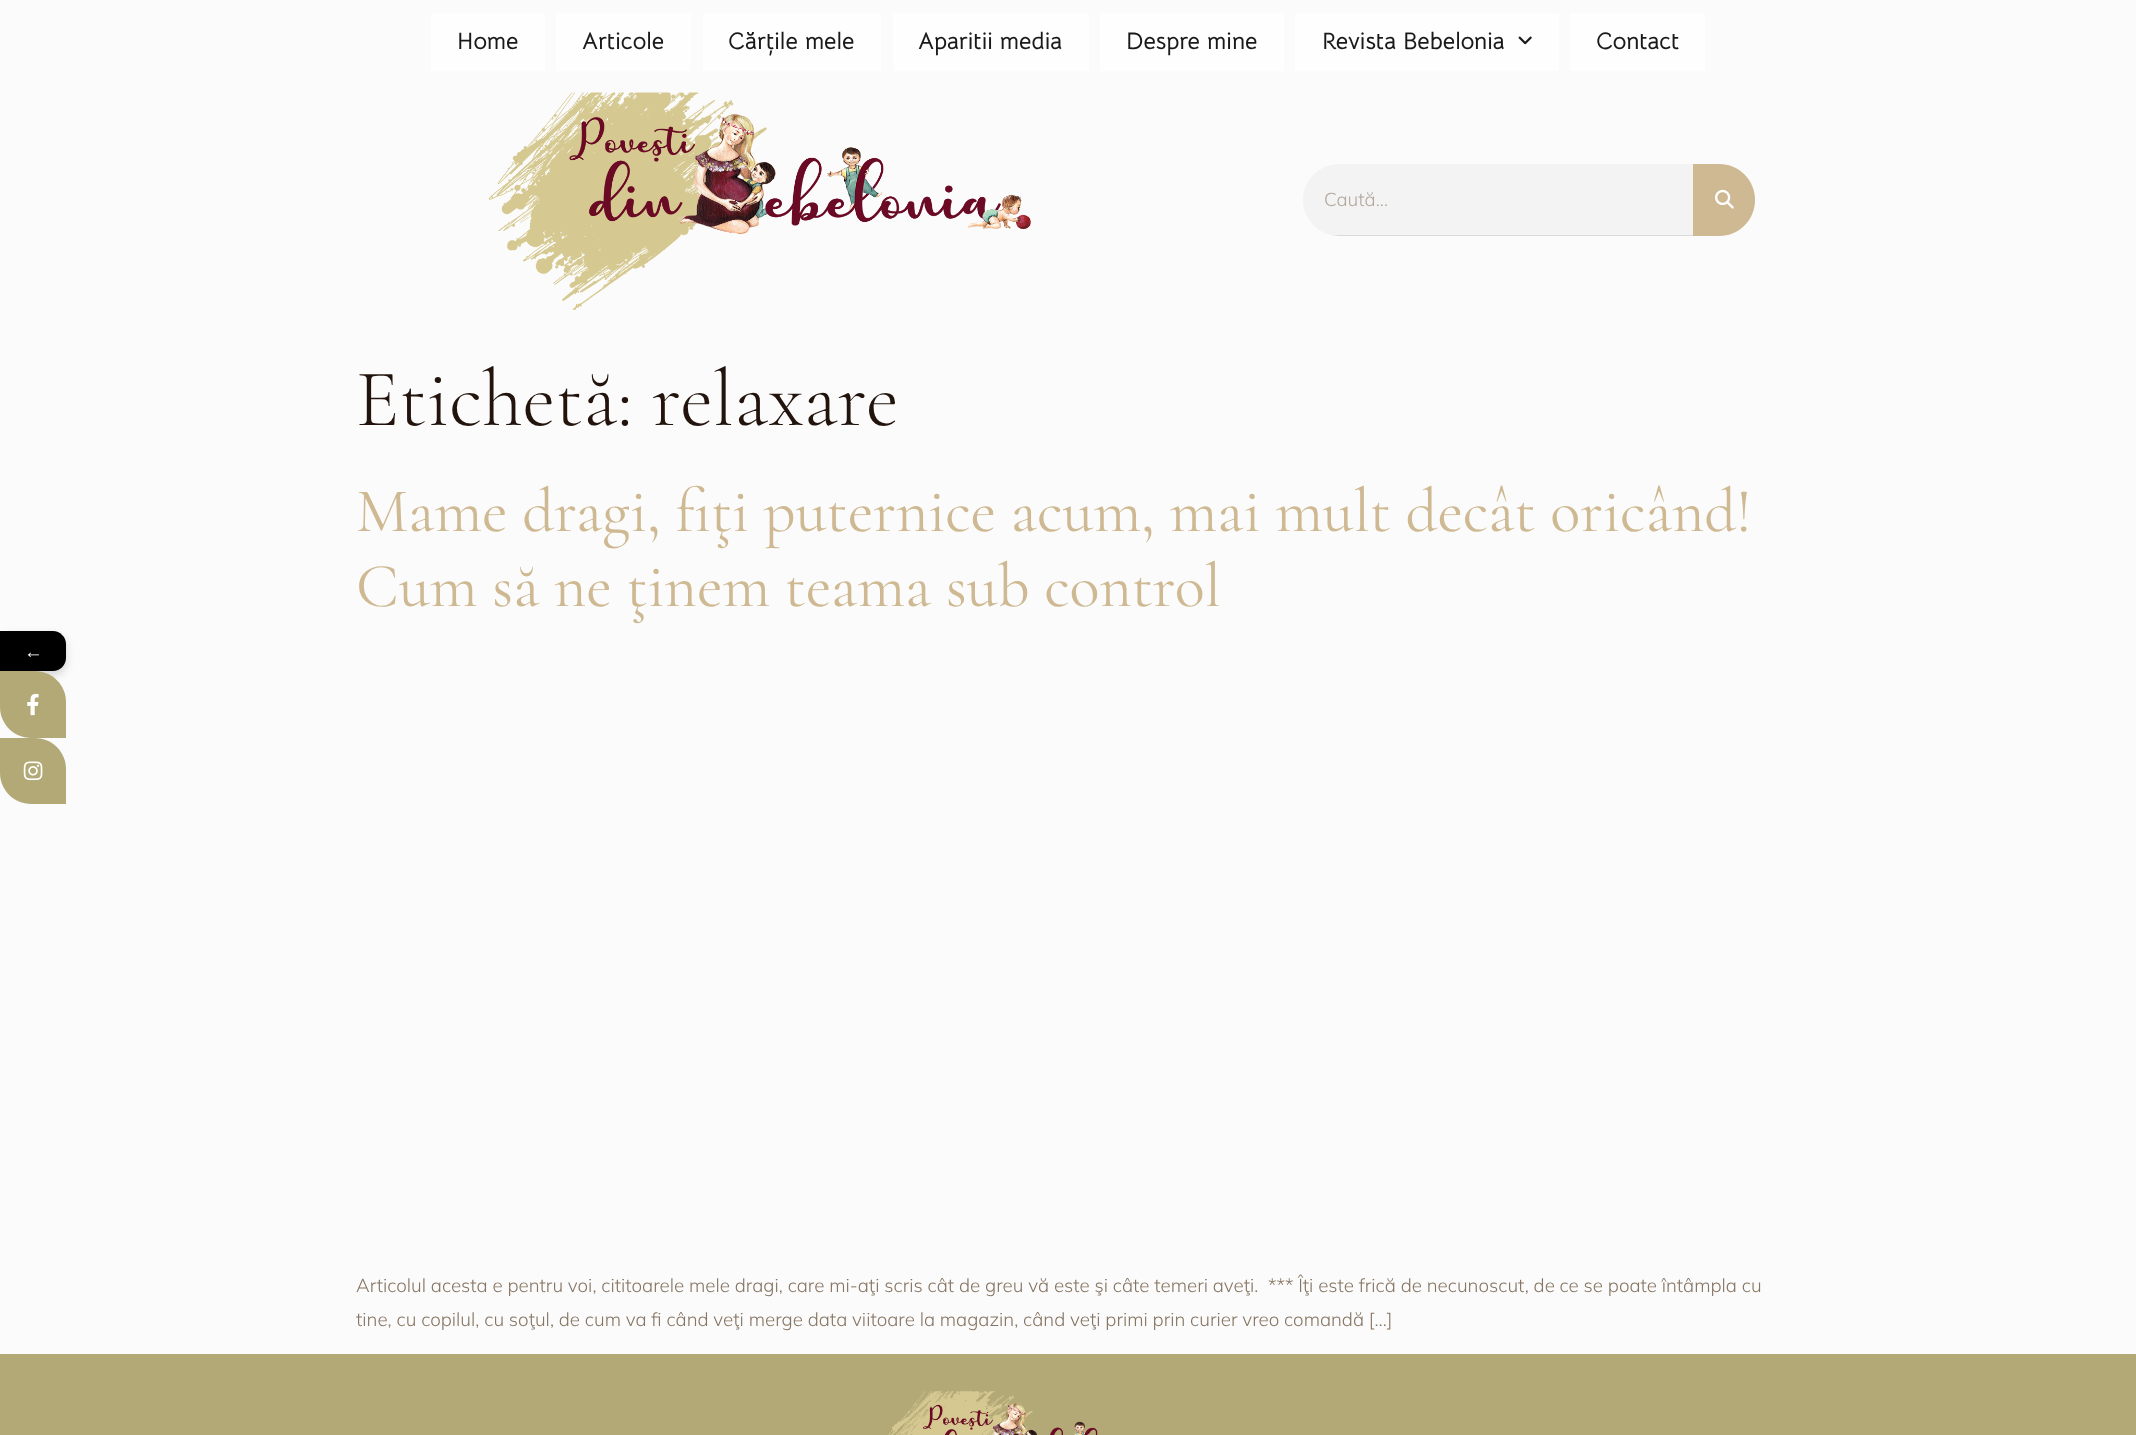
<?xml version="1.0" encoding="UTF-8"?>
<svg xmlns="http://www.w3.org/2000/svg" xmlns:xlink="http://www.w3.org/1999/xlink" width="2136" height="1435">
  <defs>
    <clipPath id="clip1"><rect x="1303" y="164" width="452" height="72" rx="36" /></clipPath>
  </defs>
  <rect width="100%" height="100%" fill="#fcfbfb" />
  <rect x="431" y="13" width="114" height="58" fill="#fefefe" />
  <rect x="556" y="13" width="135" height="58" fill="#fefefe" />
  <rect x="703" y="13" width="178" height="58" fill="#fefefe" />
  <rect x="893" y="13" width="196" height="58" fill="#fefefe" />
  <rect x="1100" y="13" width="184" height="58" fill="#fefefe" />
  <rect x="1295" y="13" width="264" height="58" fill="#fefefe" />
  <image x="1518" y="36" width="14" height="9" xlink:href="image1.png" />
  <rect x="1570" y="13" width="135" height="58" fill="#fefefe" />
  <image x="488" y="92" width="543" height="218" xlink:href="image2.png" />
  <rect x="1303" y="164" width="452" height="72" rx="36" fill="#f3f3f3" />
  <g clip-path="url(#clip1)">
    <rect x="1331" y="235" width="362" height="1" fill="#22140d" fill-opacity="0.11" />
  </g>
  <path d="M 1693 164 h 26 c 20 0 36 16 36 36 c 0 20 -16 36 -36 36 h -26 z" fill="#ceb992" />
  <image x="1715" y="189" width="19" height="20" xlink:href="image3.png" />
  <rect y="635" width="66" height="40" rx="13" fill="#000000" fill-opacity="0.16" filter="blur(4px)" />
  <path d="M 0 631 h 53 c 7 0 13 6 13 13 v 14 c 0 7 -6 13 -13 13 h -53 z" fill="#000000" />
  <path d="M 0 671 h 35 c 17 0 31 14 31 31 v 36 h -35 c -17 0 -31 -14 -31 -31 z" fill="#b3a977" />
  <image x="27" y="693" width="12" height="23" xlink:href="image4.png" />
  <path d="M 0 738 h 35 c 17 0 31 14 31 31 v 35 h -35 c -17 0 -31 -14 -31 -31 z" fill="#b3a977" />
  <image x="23" y="761" width="20" height="20" xlink:href="image5.png" />
  <rect y="1354" width="2136" height="81" fill="#b3a977" />
  <image x="888" y="1391" width="210" height="44" xlink:href="image6.png" />
  <text x="457" y="49" style="font-family: Bellota Text; font-size: 23.75px; font-weight: bold; fill: #1a1a1a">Home</text>
  <text x="582" y="49" style="font-family: Bellota Text; font-size: 23.75px; font-weight: bold; fill: #1a1a1a">Articole</text>
  <text x="728" y="49" style="font-family: Bellota Text; font-size: 23.75px; font-weight: bold; fill: #1a1a1a">Cărțile mele</text>
  <text x="918" y="49" style="font-family: Bellota Text; font-size: 23.75px; font-weight: bold; fill: #1a1a1a">Aparitii media</text>
  <text x="1126" y="49" style="font-family: Bellota Text; font-size: 23.75px; font-weight: bold; fill: #1a1a1a">Despre mine</text>
  <text x="1322" y="49" style="font-family: Bellota Text; font-size: 23.75px; font-weight: bold; fill: #1a1a1a">Revista Bebelonia</text>
  <text x="1596" y="49" style="font-family: Bellota Text; font-size: 23.75px; font-weight: bold; fill: #1a1a1a">Contact</text>
  <text x="1324" y="206" style="font-family: Mulish; font-size: 18.75px; font-weight: 300; fill: #b2a79d">Caută...</text>
  <text x="24" y="658" style="font-family: Liberation Serif; font-size: 18.75px; fill: #ffffff">←</text>
  <text x="356" y="425" style="font-family: Cormorant Garamond; font-size: 81.25px; font-weight: 300; fill: #22140d">Etichetă: relaxare</text>
  <text x="356" y="531" style="font-family: Cormorant Garamond; font-size: 62.5px; fill: #ceb992">Mame dragi, fiţi puternice acum, mai mult decât oricând!</text>
  <text x="356" y="606" style="font-family: Cormorant Garamond; font-size: 62.5px; fill: #ceb992">Cum să ne ţinem teama sub control</text>
  <text x="356" y="1292" style="font-family: Mulish; font-size: 18.75px; font-weight: 300; fill: #867563" xml:space="preserve">Articolul acesta e pentru voi, cititoarele mele dragi, care mi-aţi scris cât de greu vă este şi câte temeri aveţi.  *** Îţi este frică de necunoscut, de ce se poate întâmpla cu</text>
  <text x="356" y="1326" style="font-family: Mulish; font-size: 18.75px; font-weight: 300; fill: #867563">tine, cu copilul, cu soţul, de cum va fi când veţi merge data viitoare la magazin, când veţi primi prin curier vreo comandă […]</text>
</svg>
